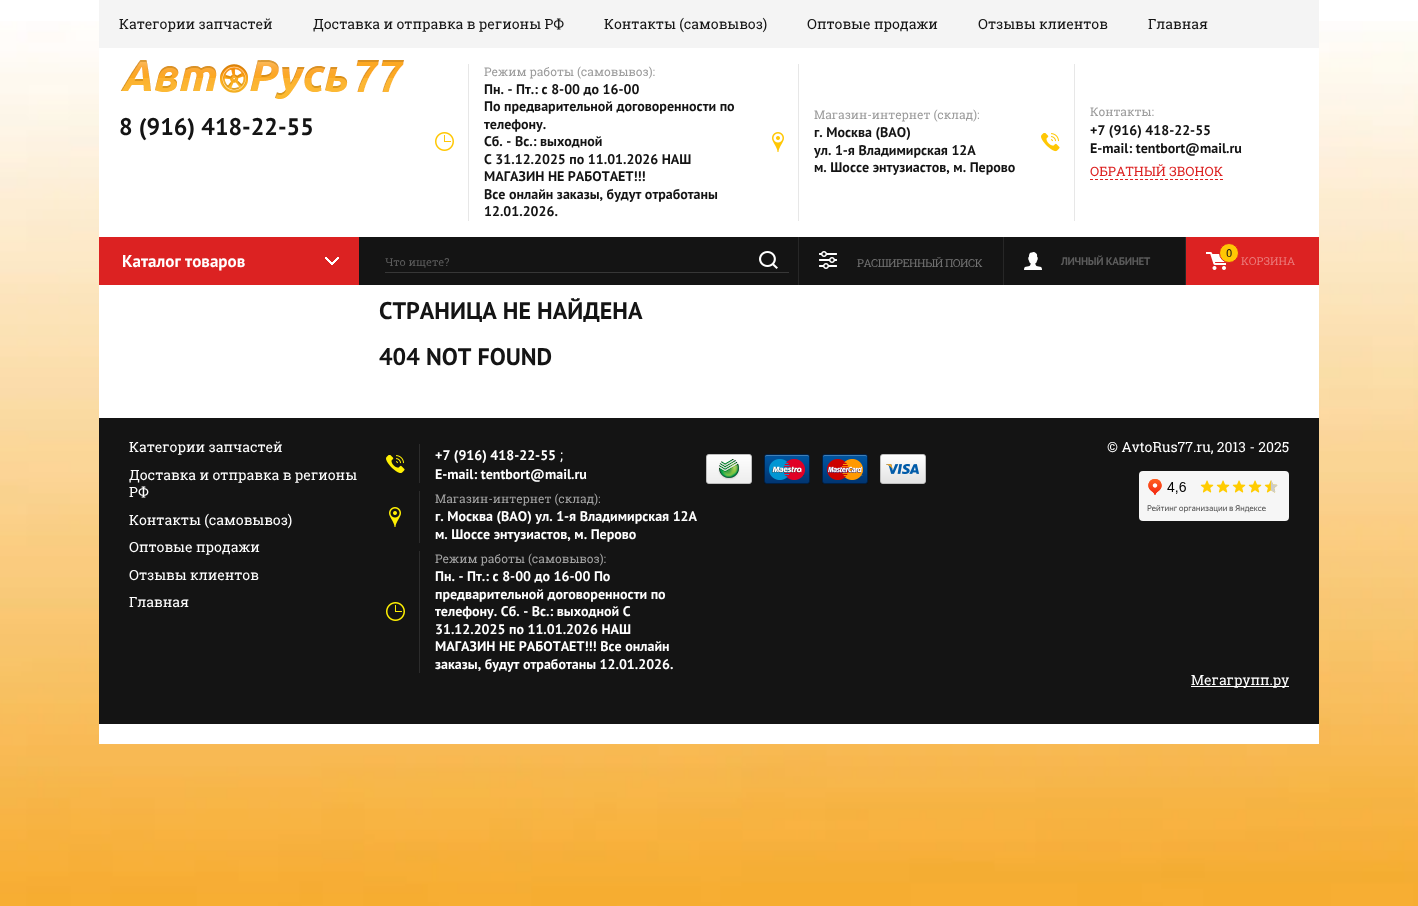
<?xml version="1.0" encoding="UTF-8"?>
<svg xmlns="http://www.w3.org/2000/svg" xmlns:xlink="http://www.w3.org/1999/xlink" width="1418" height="906">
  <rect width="100%" height="100%" fill="#ffffff" />
  <image x="0" y="21" width="1418" height="885" xlink:href="image18.png" />
  <rect x="99" y="48" width="1220" height="696" fill="#ffffff" />
  <rect x="99" width="1220" height="48" fill="#f4f4f4" />
  <image x="120" y="60" width="284" height="39" xlink:href="image1.png" />
  <rect x="468" y="64" width="1" height="157" fill="#e7e7e7" />
  <image x="435" y="132" width="19" height="19" xlink:href="image2.png" />
  <rect x="798" y="64" width="1" height="157" fill="#e7e7e7" />
  <image x="772" y="132" width="12" height="20" xlink:href="image3.png" />
  <rect x="1074" y="64" width="1" height="157" fill="#e7e7e7" />
  <image x="1041" y="133" width="19" height="19" xlink:href="image4.png" />
  <path d="M 1090 179.5 h 133" fill="none" stroke="#dc2222" stroke-dasharray="3 2" />
  <rect x="359" y="237" width="826" height="48" fill="#141414" />
  <rect x="99" y="237" width="260" height="48" fill="#dc2222" />
  <image x="325" y="257" width="14" height="8" xlink:href="image5.png" />
  <rect x="385" y="272" width="404" height="1" fill="#373737" />
  <image x="759" y="251" width="19" height="18" xlink:href="image6.png" />
  <image x="819" y="251" width="18" height="18" xlink:href="image7.png" />
  <rect x="798" y="237" width="1" height="48" fill="#272727" />
  <image x="1024" y="252" width="18" height="18" xlink:href="image8.png" />
  <rect x="1185" y="237" width="1" height="48" fill="#272727" />
  <rect x="1003" y="237" width="1" height="48" fill="#272727" />
  <rect x="1186" y="237" width="133" height="48" fill="#dc2222" />
  <image x="1206" y="252" width="20" height="18" xlink:href="image9.png" />
  <circle cx="1229" cy="253" r="9.5" fill="#ffc704" stroke="#dc2222" />
  <rect x="99" y="418" width="1220" height="306" fill="#141414" />
  <image x="1139" y="471" width="150" height="50" xlink:href="image10.png" />
  <rect x="419" y="444" width="1" height="39" fill="#2c2c2c" />
  <image x="386" y="455" width="19" height="18" xlink:href="image11.png" />
  <rect x="419" y="491" width="1" height="52" fill="#2c2c2c" />
  <image x="389" y="507" width="12" height="20" xlink:href="image12.png" />
  <rect x="419" y="551" width="1" height="122" fill="#2c2c2c" />
  <image x="386" y="602" width="19" height="19" xlink:href="image13.png" />
  <image x="706" y="454" width="46" height="30" xlink:href="image14.png" />
  <image x="764" y="454" width="46" height="30" xlink:href="image15.png" />
  <image x="822" y="454" width="46" height="30" xlink:href="image16.png" />
  <image x="880" y="454" width="46" height="30" xlink:href="image17.png" />
  <rect x="1191" y="686" width="98" height="1" fill="#ffffff" />
  <text x="119" y="29" style="font-family: Roboto Slab; font-size: 14px; fill: #141414">Категории запчастей</text>
  <text x="313" y="29" style="font-family: Roboto Slab; font-size: 14px; fill: #141414">Доставка и отправка в регионы РФ</text>
  <text x="604" y="29" style="font-family: Roboto Slab; font-size: 14px; fill: #141414">Контакты (самовывоз)</text>
  <text x="807" y="29" style="font-family: Roboto Slab; font-size: 14px; fill: #141414">Оптовые продажи</text>
  <text x="978" y="29" style="font-family: Roboto Slab; font-size: 14px; fill: #141414">Отзывы клиентов</text>
  <text x="1148" y="29" style="font-family: Roboto Slab; font-size: 14px; fill: #141414">Главная</text>
  <text x="119" y="135" style="font-family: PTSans; font-size: 24px; font-weight: bold; fill: #141414">8 (916) 418-22-55</text>
  <text x="484" y="76" style="font-family: Roboto Slab; font-size: 12px; fill: #9c9c9c">Режим работы (самовывоз):</text>
  <text x="484" y="94" style="font-family: PTSans; font-size: 14px; font-weight: bold; fill: #141414">Пн. - Пт.: с 8-00 до 16-00</text>
  <text x="484" y="111" style="font-family: PTSans; font-size: 14px; font-weight: bold; fill: #141414">По предварительной договоренности по</text>
  <text x="484" y="129" style="font-family: PTSans; font-size: 14px; font-weight: bold; fill: #141414">телефону.</text>
  <text x="484" y="146" style="font-family: PTSans; font-size: 14px; font-weight: bold; fill: #141414">Сб. - Вс.: выходной</text>
  <text x="484" y="164" style="font-family: PTSans; font-size: 14px; font-weight: bold; fill: #141414">С 31.12.2025 по 11.01.2026 НАШ</text>
  <text x="484" y="181" style="font-family: PTSans; font-size: 14px; font-weight: bold; fill: #141414">МАГАЗИН НЕ РАБОТАЕТ!!!</text>
  <text x="484" y="199" style="font-family: PTSans; font-size: 14px; font-weight: bold; fill: #141414">Все онлайн заказы, будут отработаны</text>
  <text x="484" y="216" style="font-family: PTSans; font-size: 14px; font-weight: bold; fill: #141414">12.01.2026.</text>
  <text x="814" y="119" style="font-family: Roboto Slab; font-size: 12px; fill: #9c9c9c">Магазин-интернет (склад):</text>
  <text x="814" y="137" style="font-family: PTSans; font-size: 14px; font-weight: bold; fill: #141414">г. Москва (ВАО)</text>
  <text x="814" y="155" style="font-family: PTSans; font-size: 14px; font-weight: bold; fill: #141414">ул. 1-я Владимирская 12А</text>
  <text x="814" y="172" style="font-family: PTSans; font-size: 14px; font-weight: bold; fill: #141414">м. Шоссе энтузиастов, м. Перово</text>
  <text x="1090" y="116" style="font-family: Roboto Slab; font-size: 12px; fill: #9c9c9c">Контакты:</text>
  <text x="1090" y="135" style="font-family: PTSans; font-size: 14px; font-weight: bold; fill: #141414">+7 (916) 418-22-55</text>
  <text x="1090" y="153" style="font-family: PTSans; font-size: 14px; font-weight: bold; fill: #141414">E-mail: tentbort@mail.ru</text>
  <text x="1090" y="176" style="font-family: Roboto Slab; font-size: 13px; fill: #dc2222">ОБРАТНЫЙ ЗВОНОК</text>
  <text x="122" y="267" style="font-family: PTSans; font-size: 17px; font-weight: bold; fill: #ffffff">Каталог товаров</text>
  <text x="385" y="266" style="font-family: Roboto Slab; font-size: 11px; fill: #5b5b5b">Что ищете?</text>
  <text x="857" y="267" style="font-family: Roboto Slab; font-size: 11px; letter-spacing: -0.5px; fill: #727272">РАСШИРЕННЫЙ ПОИСК</text>
  <text x="1061" y="265" style="font-family: PTSans; font-size: 11px; font-weight: bold; letter-spacing: -0.3px; fill: #5b5b5b">ЛИЧНЫЙ КАБИНЕТ</text>
  <text x="1226" y="257" style="font-family: Roboto Slab; font-size: 11px; fill: #141414">0</text>
  <text x="1241" y="265" style="font-family: Roboto Slab; font-size: 11px; fill: #ea7a7a">КОРЗИНА</text>
  <text x="379" y="319" style="font-family: PTSans; font-size: 24px; font-weight: bold; fill: #141414">СТРАНИЦА НЕ НАЙДЕНА</text>
  <text x="379" y="365" style="font-family: PTSans; font-size: 24px; font-weight: bold; fill: #141414">404 NOT FOUND</text>
  <text x="129" y="452" style="font-family: Roboto Slab; font-size: 14px; fill: #ffffff">Категории запчастей</text>
  <text x="129" y="480" style="font-family: Roboto Slab; font-size: 14px; fill: #ffffff">Доставка и отправка в регионы</text>
  <text x="129" y="497" style="font-family: Roboto Slab; font-size: 14px; fill: #ffffff">РФ</text>
  <text x="129" y="525" style="font-family: Roboto Slab; font-size: 14px; fill: #ffffff">Контакты (самовывоз)</text>
  <text x="129" y="552" style="font-family: Roboto Slab; font-size: 14px; fill: #ffffff">Оптовые продажи</text>
  <text x="129" y="580" style="font-family: Roboto Slab; font-size: 14px; fill: #ffffff">Отзывы клиентов</text>
  <text x="129" y="607" style="font-family: Roboto Slab; font-size: 14px; fill: #ffffff">Главная</text>
  <text x="1107" y="452" style="font-family: Roboto Slab; font-size: 14px; fill: #ffffff">© AvtoRus77.ru, 2013 - 2025</text>
  <text x="435" y="460" style="font-family: PTSans; font-size: 14px; font-weight: bold; fill: #ffffff">+7 (916) 418-22-55</text>
  <text x="560" y="460" style="font-family: Roboto Slab; font-size: 14px; fill: #ffffff">;</text>
  <text x="435" y="479" style="font-family: PTSans; font-size: 14px; font-weight: bold; fill: #ffffff">E-mail: tentbort@mail.ru</text>
  <text x="435" y="503" style="font-family: Roboto Slab; font-size: 12px; fill: #a3a3a3">Магазин-интернет (склад):</text>
  <text x="435" y="521" style="font-family: PTSans; font-size: 14px; font-weight: bold; fill: #ffffff">г. Москва (ВАО) ул. 1-я Владимирская 12А</text>
  <text x="435" y="539" style="font-family: PTSans; font-size: 14px; font-weight: bold; fill: #ffffff">м. Шоссе энтузиастов, м. Перово</text>
  <text x="435" y="563" style="font-family: Roboto Slab; font-size: 12px; fill: #a3a3a3">Режим работы (самовывоз):</text>
  <text x="435" y="581" style="font-family: PTSans; font-size: 14px; font-weight: bold; fill: #ffffff">Пн. - Пт.: с 8-00 до 16-00 По</text>
  <text x="435" y="599" style="font-family: PTSans; font-size: 14px; font-weight: bold; fill: #ffffff">предварительной договоренности по</text>
  <text x="435" y="616" style="font-family: PTSans; font-size: 14px; font-weight: bold; fill: #ffffff">телефону. Сб. - Вс.: выходной С</text>
  <text x="435" y="634" style="font-family: PTSans; font-size: 14px; font-weight: bold; fill: #ffffff">31.12.2025 по 11.01.2026 НАШ</text>
  <text x="435" y="651" style="font-family: PTSans; font-size: 14px; font-weight: bold; fill: #ffffff">МАГАЗИН НЕ РАБОТАЕТ!!! Все онлайн</text>
  <text x="435" y="669" style="font-family: PTSans; font-size: 14px; font-weight: bold; fill: #ffffff">заказы, будут отработаны 12.01.2026.</text>
  <text x="1191" y="685" style="font-family: Roboto Slab; font-size: 14px; fill: #ffffff">Мегагрупп.ру</text>
</svg>
